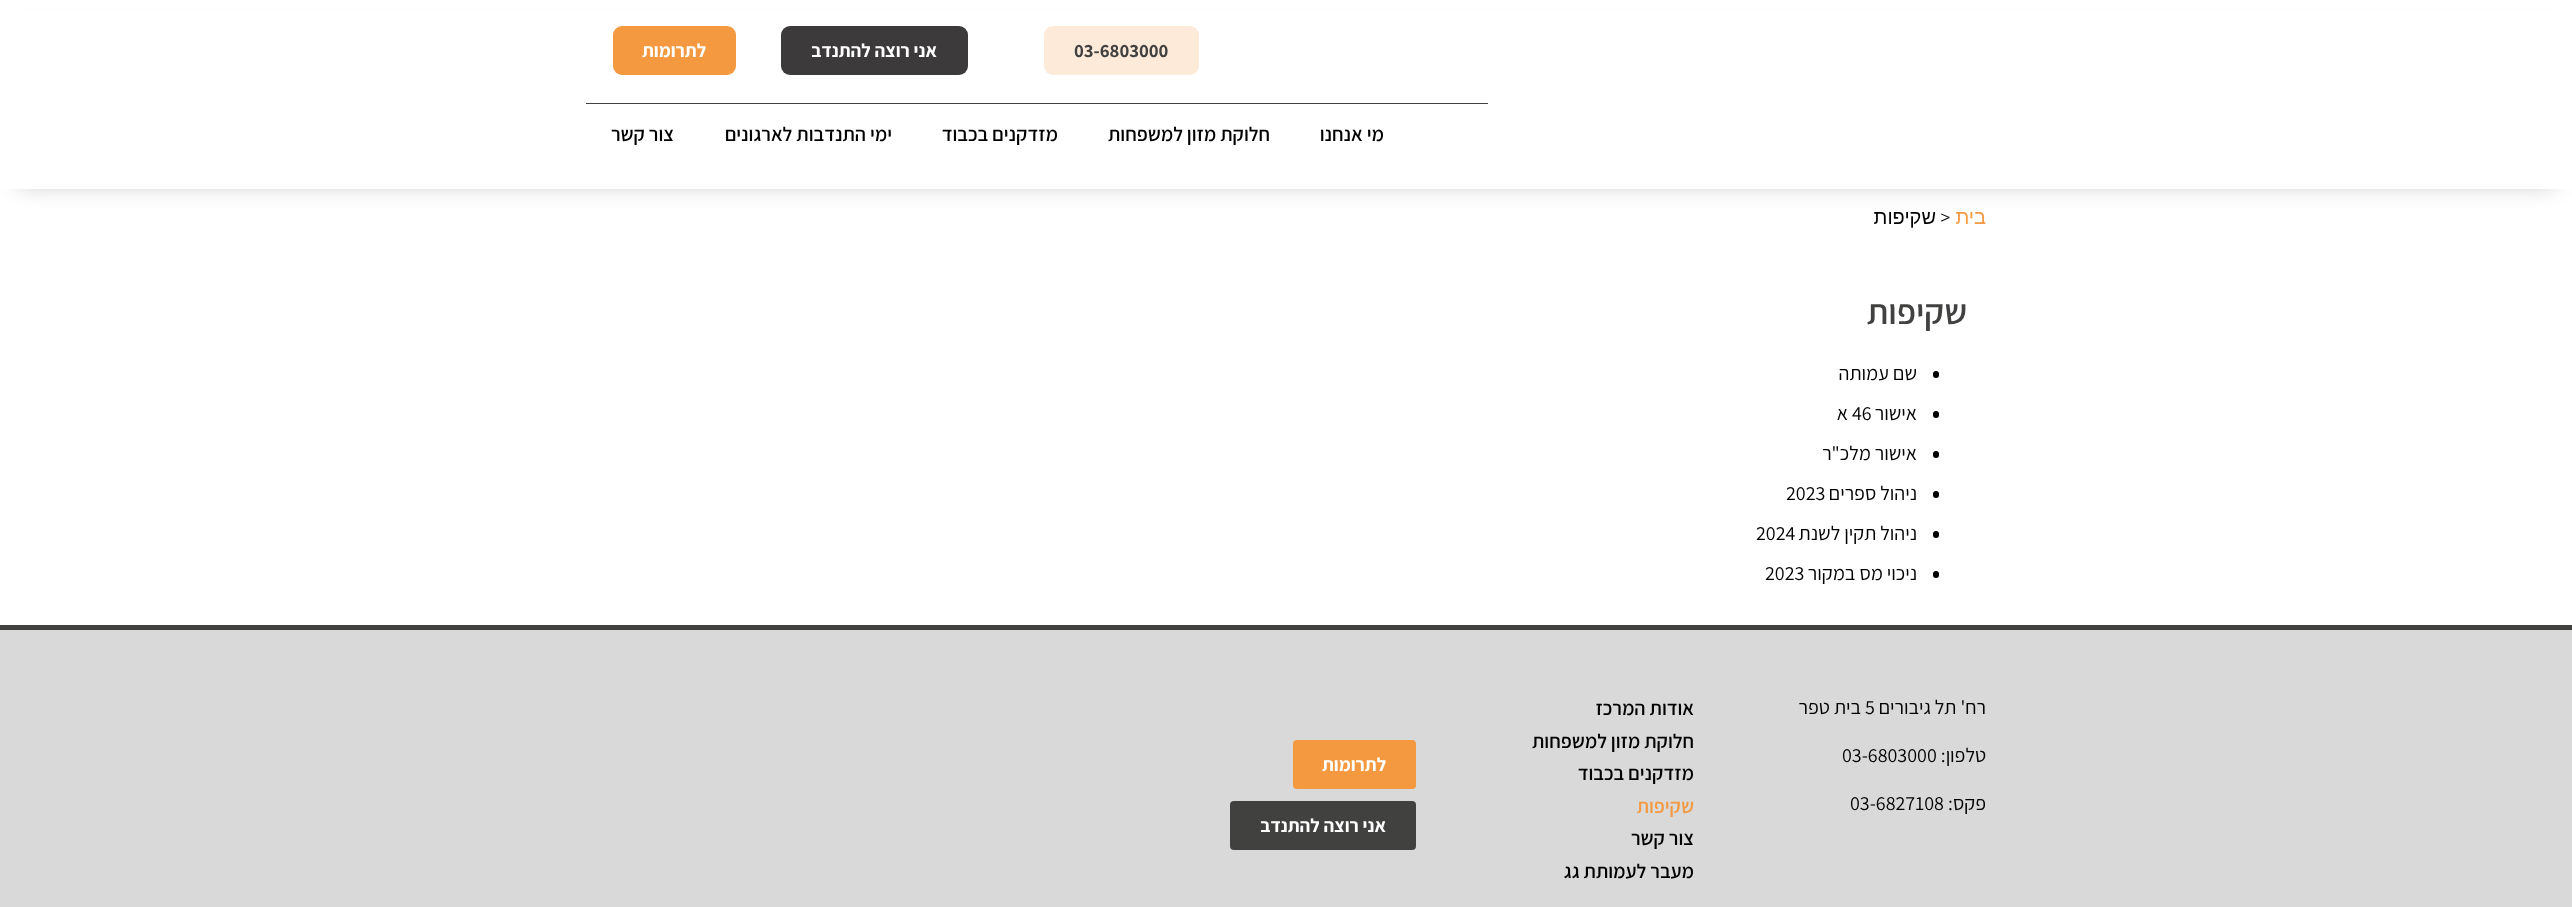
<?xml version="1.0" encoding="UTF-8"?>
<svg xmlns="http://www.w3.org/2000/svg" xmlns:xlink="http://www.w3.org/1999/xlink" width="2572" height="907">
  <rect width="100%" height="100%" fill="#ffffff" />
  <rect x="18" y="31" width="2537" height="154" fill="#000000" fill-opacity="0.23" filter="blur(11px)" />
  <rect y="12" width="2572" height="177" fill="#ffffff" />
  <rect x="1044" y="26" width="155" height="49" rx="9" fill="#fdead9" />
  <rect x="781" y="26" width="187" height="49" rx="9" fill="#3c3a3a" />
  <rect x="613" y="26" width="123" height="49" rx="9" fill="#f49940" />
  <rect x="586" y="103" width="902" height="1" fill="#414140" />
  <rect x="1933" y="371" width="6" height="7" rx="3" fill="#000000" />
  <rect x="1933" y="411" width="6" height="7" rx="3" fill="#000000" />
  <rect x="1933" y="451" width="6" height="7" rx="3" fill="#000000" />
  <rect x="1933" y="491" width="6" height="7" rx="3" fill="#000000" />
  <rect x="1933" y="531" width="6" height="7" rx="3" fill="#000000" />
  <rect x="1933" y="571" width="6" height="7" rx="3" fill="#000000" />
  <rect y="630" width="2572" height="277" fill="#d9d9d9" />
  <rect y="625" width="2572" height="5" fill="#414140" />
  <rect x="1293" y="740" width="123" height="49" rx="4" fill="#f49940" />
  <rect x="1230" y="801" width="186" height="49" rx="4" fill="#414140" />
  <text x="1074" y="57" style="font-family: Assistant; font-size: 18.75px; font-weight: bold; fill: #414140">03-6803000</text>
  <text x="937" y="57" style="font-family: Assistant; font-size: 18.75px; font-weight: bold; direction: rtl; fill: #ffffff">אני רוצה להתנדב</text>
  <text x="706" y="57" style="font-family: Assistant; font-size: 18.75px; font-weight: bold; direction: rtl; fill: #ffffff">לתרומות</text>
  <text x="1384" y="141" style="font-family: Assistant; font-size: 20px; font-weight: 600; direction: rtl; fill: #000000">מי אנחנו</text>
  <text x="1270" y="141" style="font-family: Assistant; font-size: 20px; font-weight: 600; direction: rtl; fill: #000000">חלוקת מזון למשפחות</text>
  <text x="1058" y="141" style="font-family: Assistant; font-size: 20px; font-weight: 600; direction: rtl; fill: #000000">מזדקנים בכבוד</text>
  <text x="892" y="141" style="font-family: Assistant; font-size: 20px; font-weight: 600; direction: rtl; fill: #000000">ימי התנדבות לארגונים</text>
  <text x="674" y="141" style="font-family: Assistant; font-size: 20px; font-weight: 600; direction: rtl; fill: #000000">צור קשר</text>
  <text x="1986" y="224" style="font-family: Liberation Sans; font-size: 20px; direction: rtl; fill: #f49940">בית</text>
  <text x="1940" y="224" style="font-family: Roboto; font-size: 20px; font-weight: 300; fill: #000000">&gt;</text>
  <text x="1936" y="224" style="font-family: Liberation Sans; font-size: 20px; direction: rtl; fill: #000000">שקיפות</text>
  <text x="1967" y="324" style="font-family: Assistant; font-size: 35px; font-weight: 600; direction: rtl; fill: #414140">שקיפות</text>
  <text x="1917" y="380" style="font-family: Assistant; font-size: 20px; direction: rtl; fill: #000000">שם עמותה</text>
  <text x="1917" y="420" style="font-family: Assistant; font-size: 20px; direction: rtl; fill: #000000">אישור</text>
  <text x="1852" y="420" style="font-family: Assistant; font-size: 20px; fill: #000000">46</text>
  <text x="1848" y="420" style="font-family: Assistant; font-size: 20px; direction: rtl; fill: #000000">א</text>
  <text x="1917" y="460" style="font-family: Assistant; font-size: 20px; direction: rtl; fill: #000000">אישור מלכ"ר</text>
  <text x="1917" y="500" style="font-family: Assistant; font-size: 20px; direction: rtl; fill: #000000">ניהול ספרים</text>
  <text x="1786" y="500" style="font-family: Assistant; font-size: 20px; fill: #000000">2023</text>
  <text x="1917" y="540" style="font-family: Assistant; font-size: 20px; direction: rtl; fill: #000000">ניהול תקין לשנת</text>
  <text x="1756" y="540" style="font-family: Assistant; font-size: 20px; fill: #000000">2024</text>
  <text x="1917" y="580" style="font-family: Assistant; font-size: 20px; direction: rtl; fill: #000000">ניכוי מס במקור</text>
  <text x="1765" y="580" style="font-family: Assistant; font-size: 20px; fill: #000000">2023</text>
  <text x="1986" y="714" style="font-family: Assistant; font-size: 20px; direction: rtl; fill: #000000">רח' תל גיבורים</text>
  <text x="1865" y="714" style="font-family: Assistant; font-size: 20px; fill: #000000">5</text>
  <text x="1861" y="714" style="font-family: Assistant; font-size: 20px; direction: rtl; fill: #000000">בית טפר</text>
  <text x="1986" y="762" style="font-family: Assistant; font-size: 20px; direction: rtl; fill: #000000">טלפון:</text>
  <text x="1842" y="762" style="font-family: Assistant; font-size: 20px; fill: #000000">03-6803000</text>
  <text x="1986" y="810" style="font-family: Assistant; font-size: 20px; direction: rtl; fill: #000000">פקס:</text>
  <text x="1850" y="810" style="font-family: Assistant; font-size: 20px; fill: #000000">03-6827108</text>
  <text x="1694" y="715" style="font-family: Assistant; font-size: 20px; font-weight: 600; direction: rtl; fill: #000000">אודות המרכז</text>
  <text x="1694" y="748" style="font-family: Assistant; font-size: 20px; font-weight: 600; direction: rtl; fill: #000000">חלוקת מזון למשפחות</text>
  <text x="1694" y="780" style="font-family: Assistant; font-size: 20px; font-weight: 600; direction: rtl; fill: #000000">מזדקנים בכבוד</text>
  <text x="1694" y="813" style="font-family: Assistant; font-size: 20px; font-weight: 600; direction: rtl; fill: #f49940">שקיפות</text>
  <text x="1694" y="845" style="font-family: Assistant; font-size: 20px; font-weight: 600; direction: rtl; fill: #000000">צור קשר</text>
  <text x="1694" y="878" style="font-family: Assistant; font-size: 20px; font-weight: 600; direction: rtl; fill: #000000">מעבר לעמותת גג</text>
  <text x="1386" y="771" style="font-family: Assistant; font-size: 18.75px; font-weight: bold; direction: rtl; fill: #ffffff">לתרומות</text>
  <text x="1386" y="832" style="font-family: Assistant; font-size: 18.75px; font-weight: bold; direction: rtl; fill: #ffffff">אני רוצה להתנדב</text>
</svg>
